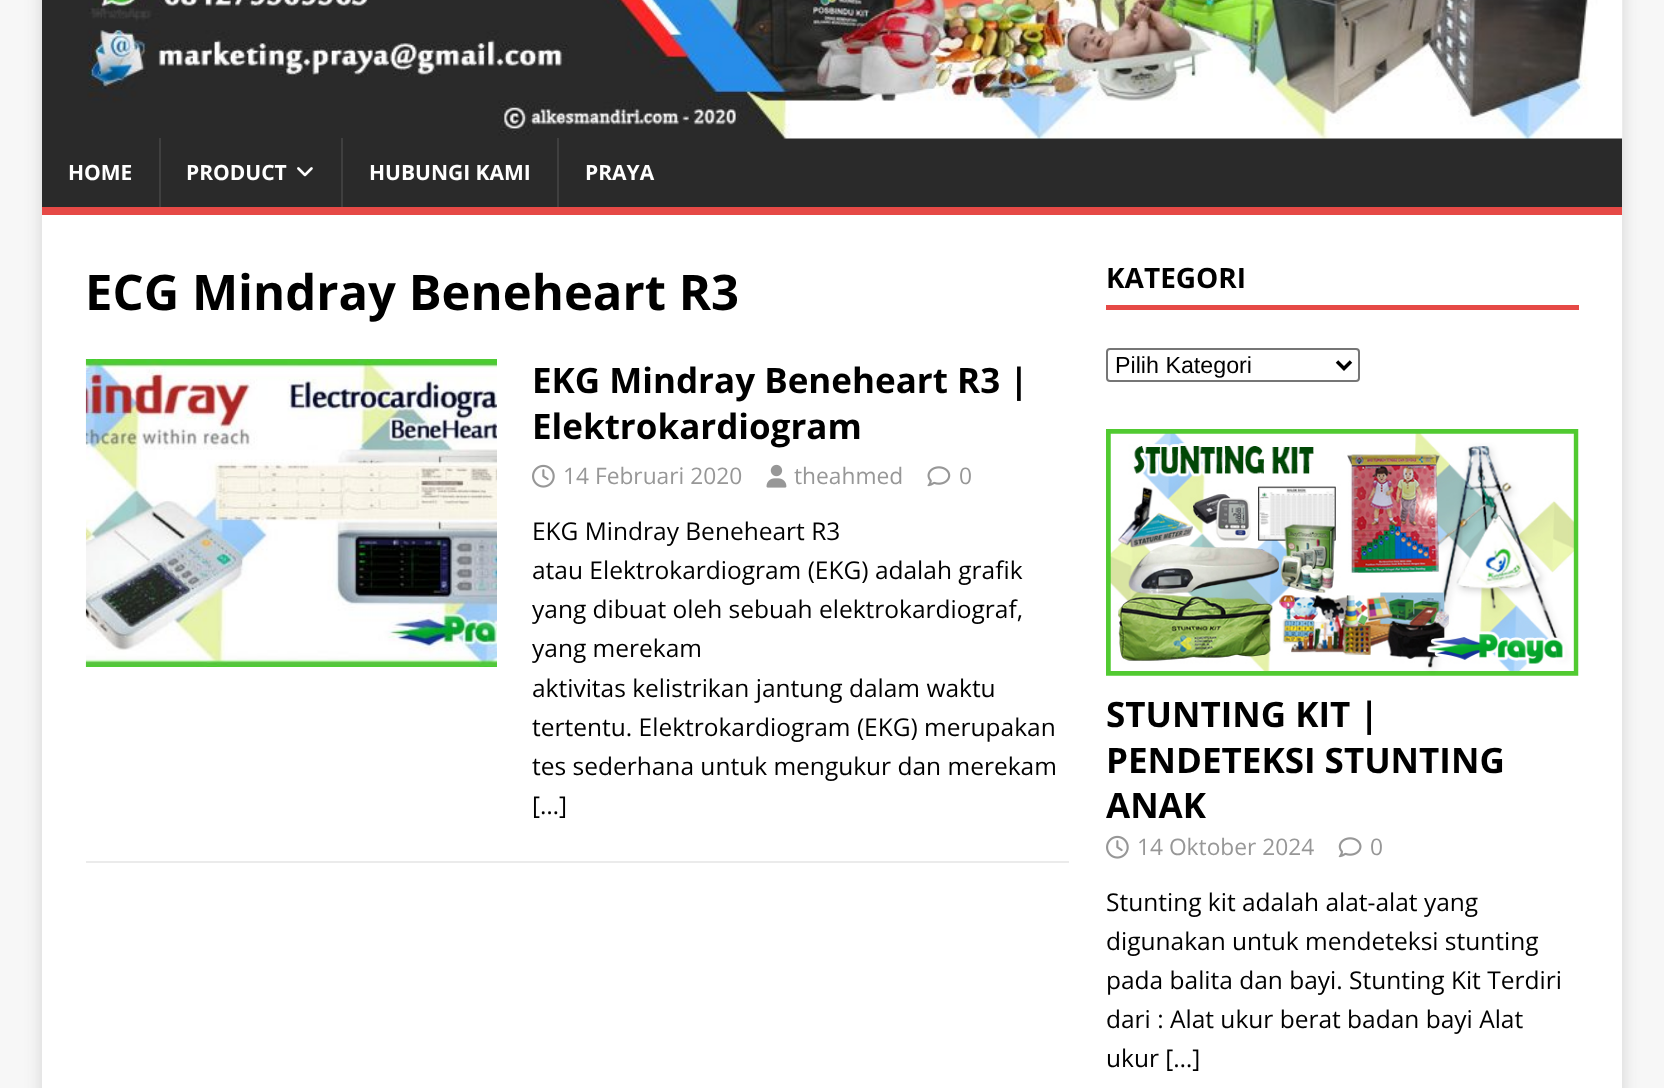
<?xml version="1.0" encoding="UTF-8"?>
<svg xmlns="http://www.w3.org/2000/svg" xmlns:xlink="http://www.w3.org/1999/xlink" width="1664" height="1088">
  <defs>
    <clipPath id="clip1"><rect x="532" y="513" width="537" height="313" /></clipPath>
  </defs>
  <rect width="100%" height="100%" fill="#f7f7f7" />
  <rect x="42" y="-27" width="1580" height="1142" fill="#323232" fill-opacity="0.17" filter="blur(9px)" />
  <rect x="42" y="138" width="1580" height="69" fill="#2a2a2a" />
  <image x="42" y="0" width="1581" height="139" xlink:href="image1.png" />
  <rect x="42" y="207" width="1580" height="8" fill="#e64946" />
  <rect x="159" y="138" width="2" height="69" fill="#3f3f3f" />
  <image x="297" y="167" width="16" height="10" xlink:href="image2.png" />
  <rect x="341" y="138" width="2" height="69" fill="#3f3f3f" />
  <rect x="557" y="138" width="2" height="69" fill="#3f3f3f" />
  <rect x="42" y="215" width="1580" height="873" fill="#ffffff" />
  <rect x="86" y="861" width="983" height="2" fill="#ebebeb" />
  <image x="85" y="359" width="412" height="308" xlink:href="image3.png" />
  <image x="532" y="464" width="23" height="24" xlink:href="image4.png" />
  <image x="766" y="464" width="21" height="24" xlink:href="image5.png" />
  <image x="927" y="466" width="24" height="21" xlink:href="image6.png" />
  <rect x="1106" y="305" width="473" height="5" fill="#e64946" />
  <rect x="1107" y="349" width="252" height="32" rx="3" fill="none" stroke="#767676" stroke-width="2" />
  <path d="M 1337 361.5 l 7 7 l 7 -7" fill="none" stroke="#000000" stroke-width="3.5" />
  <image x="1106" y="429" width="473" height="247" xlink:href="image7.png" />
  <image x="1106" y="835" width="23" height="24" xlink:href="image4.png" />
  <image x="1338" y="837" width="24" height="21" xlink:href="image8.png" />
  <text x="68" y="180" style="font-family: Open Sans; font-size: 21px; font-weight: bold; fill: #ffffff">HOME</text>
  <text x="186" y="180" style="font-family: Open Sans; font-size: 21px; font-weight: bold; fill: #ffffff">PRODUCT</text>
  <text x="369" y="180" style="font-family: Open Sans; font-size: 21px; font-weight: bold; fill: #ffffff">HUBUNGI KAMI</text>
  <text x="585" y="180" style="font-family: Open Sans; font-size: 21px; font-weight: bold; fill: #ffffff">PRAYA</text>
  <text x="85" y="310" style="font-family: Open Sans; font-size: 49px; font-weight: bold; fill: #000000">ECG Mindray Beneheart R3</text>
  <text x="532" y="393" style="font-family: Open Sans; font-size: 35px; font-weight: bold; fill: #000000">EKG Mindray Beneheart R3 |</text>
  <text x="532" y="439" style="font-family: Open Sans; font-size: 35px; font-weight: bold; fill: #000000">Elektrokardiogram</text>
  <text x="563" y="484" style="font-family: Open Sans; font-size: 22.75px; fill: #979797">14 Februari 2020</text>
  <text x="794" y="484" style="font-family: Open Sans; font-size: 22.75px; fill: #979797">theahmed</text>
  <text x="959" y="484" style="font-family: Open Sans; font-size: 22.75px; fill: #979797">0</text>
  <text x="532" y="540" style="font-family: Open Sans; font-size: 24.5px; fill: #000000">EKG Mindray Beneheart R3</text>
  <text x="532" y="579" style="font-family: Open Sans; font-size: 24.5px; fill: #000000">atau Elektrokardiogram (EKG) adalah grafik</text>
  <g clip-path="url(#clip1)">
    <text x="532" y="618" style="font-family: Open Sans; font-size: 24.5px; fill: #000000">yang dibuat oleh sebuah elektrokardiograf,</text>
    <text x="532" y="657" style="font-family: Open Sans; font-size: 24.5px; fill: #000000">yang merekam</text>
  </g>
  <text x="532" y="697" style="font-family: Open Sans; font-size: 24.5px; fill: #000000">aktivitas kelistrikan jantung dalam waktu</text>
  <text x="532" y="736" style="font-family: Open Sans; font-size: 24.5px; fill: #000000">tertentu. Elektrokardiogram (EKG) merupakan</text>
  <text x="532" y="775" style="font-family: Open Sans; font-size: 24.5px; fill: #000000">tes sederhana untuk mengukur dan merekam</text>
  <text x="532" y="814" style="font-family: Open Sans; font-size: 24.5px; fill: #000000">[…]</text>
  <text x="1106" y="288" style="font-family: Open Sans; font-size: 28px; font-weight: bold; fill: #000000">KATEGORI</text>
  <text x="1115" y="373" style="font-family: Liberation Sans; font-size: 23.25px; fill: #000000">Pilih Kategori</text>
  <text x="1106" y="727" style="font-family: Open Sans; font-size: 35px; font-weight: bold; fill: #000000">STUNTING KIT |</text>
  <text x="1106" y="773" style="font-family: Open Sans; font-size: 35px; font-weight: bold; fill: #000000">PENDETEKSI STUNTING</text>
  <text x="1106" y="818" style="font-family: Open Sans; font-size: 35px; font-weight: bold; fill: #000000">ANAK</text>
  <text x="1137" y="855" style="font-family: Open Sans; font-size: 22.75px; fill: #979797">14 Oktober 2024</text>
  <text x="1370" y="855" style="font-family: Open Sans; font-size: 22.75px; fill: #979797">0</text>
  <text x="1106" y="911" style="font-family: Open Sans; font-size: 24.5px; fill: #000000">Stunting kit adalah alat-alat yang</text>
  <text x="1106" y="950" style="font-family: Open Sans; font-size: 24.5px; fill: #000000">digunakan untuk mendeteksi stunting</text>
  <text x="1106" y="989" style="font-family: Open Sans; font-size: 24.5px; fill: #000000">pada balita dan bayi. Stunting Kit Terdiri</text>
  <text x="1106" y="1028" style="font-family: Open Sans; font-size: 24.5px; fill: #000000">dari : Alat ukur berat badan bayi Alat</text>
  <text x="1106" y="1067" style="font-family: Open Sans; font-size: 24.5px; fill: #000000">ukur […]</text>
</svg>
